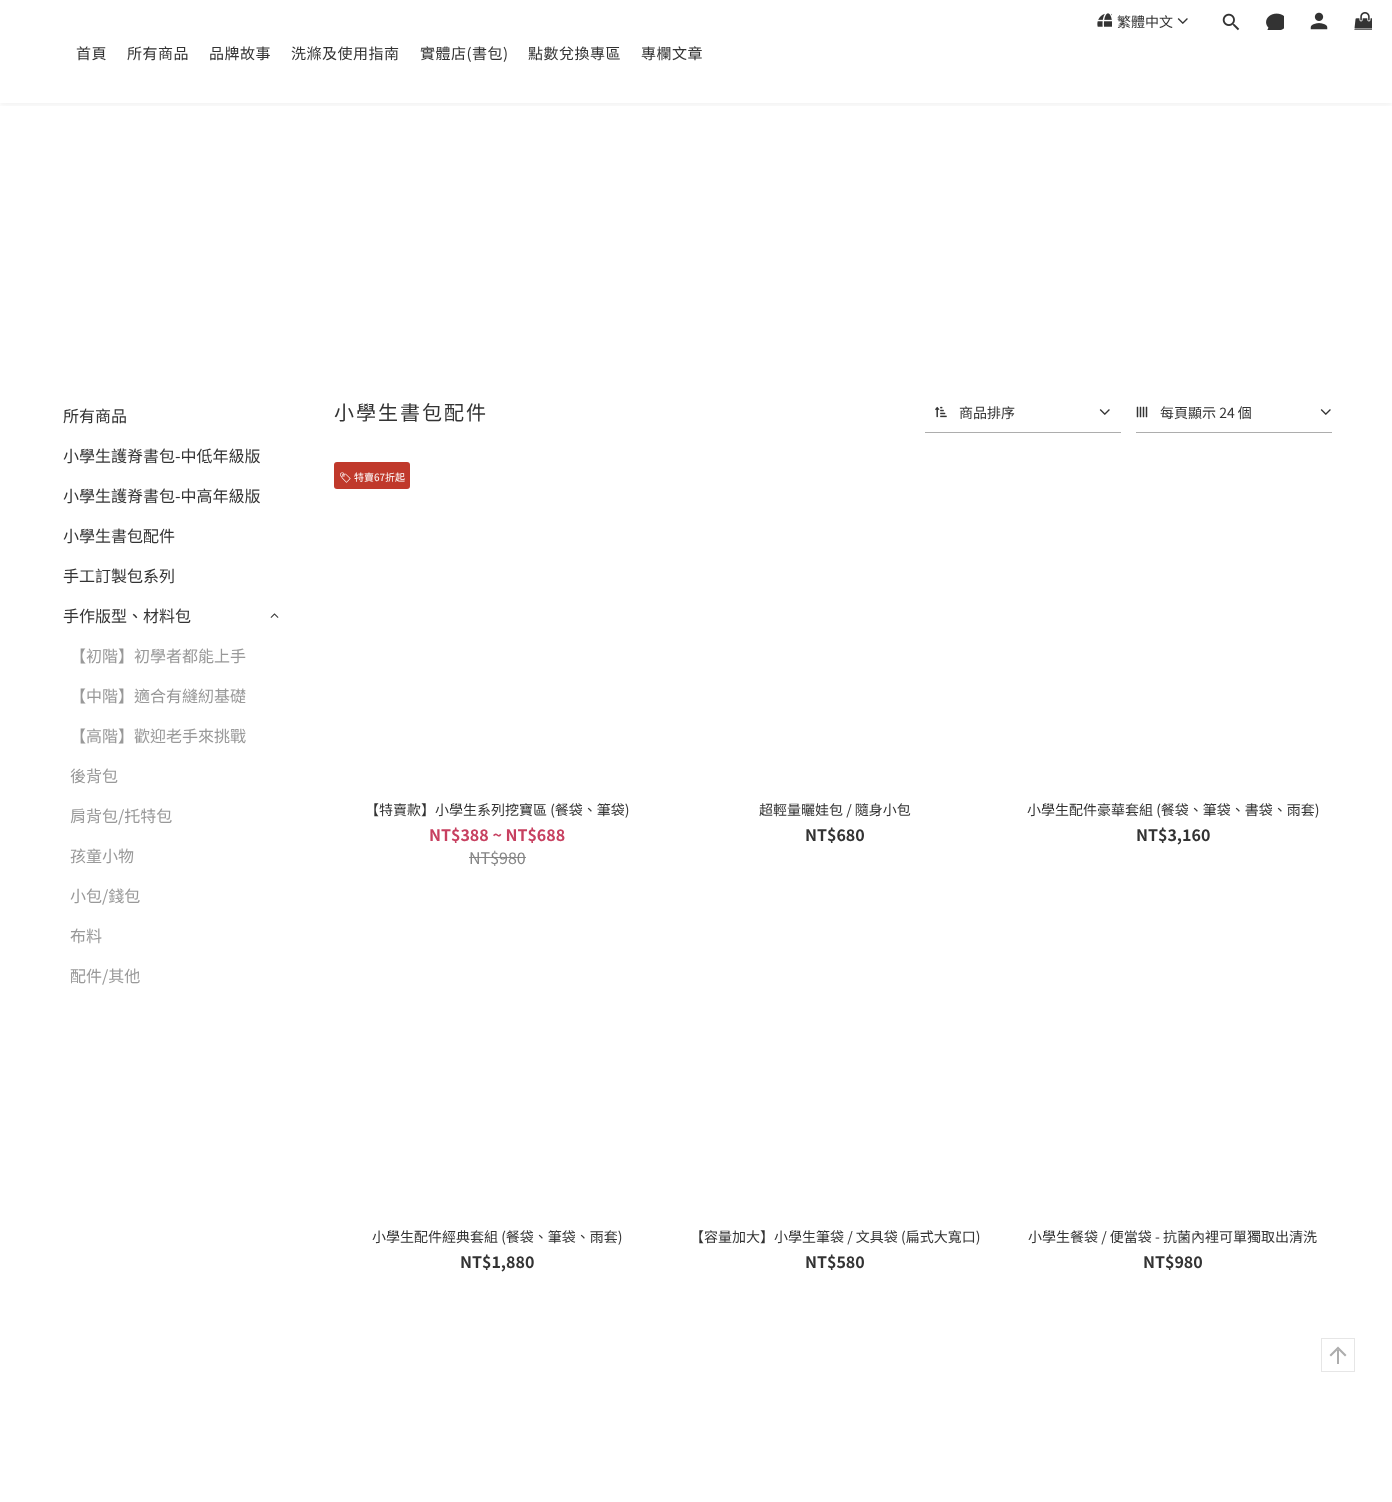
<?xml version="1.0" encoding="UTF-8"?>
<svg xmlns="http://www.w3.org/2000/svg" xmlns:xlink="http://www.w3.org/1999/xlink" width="1392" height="1502">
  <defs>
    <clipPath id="clip1"><rect x="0" y="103" width="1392" height="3" /></clipPath>
  </defs>
  <rect width="100%" height="100%" fill="#ffffff" />
  <g clip-path="url(#clip1)">
    <rect y="2" width="1392" height="103" fill="#000000" fill-opacity="0.06" filter="blur(3px)" />
  </g>
  <image x="1097" y="13" width="15" height="14" xlink:href="image1.png" />
  <image x="1177" y="18" width="11" height="6" xlink:href="image2.png" />
  <image x="1222" y="13" width="18" height="18" xlink:href="image3.png" />
  <image x="1266" y="13" width="18" height="17" xlink:href="image4.png" />
  <image x="1310" y="12" width="18" height="18" xlink:href="image5.png" />
  <image x="1354" y="12" width="18" height="18" xlink:href="image6.png" />
  <image x="270" y="613" width="9" height="5" xlink:href="image7.png" />
  <rect x="925" y="432" width="196" height="1" fill="#adadad" />
  <image x="935" y="406" width="12" height="12" xlink:href="image8.png" />
  <image x="1099" y="409" width="11" height="6" xlink:href="image2.png" />
  <rect x="1136" y="432" width="196" height="1" fill="#adadad" />
  <image x="1136" y="406" width="12" height="12" xlink:href="image9.png" />
  <image x="1320" y="409" width="11" height="6" xlink:href="image2.png" />
  <rect x="334" y="462" width="76" height="27" rx="3" fill="#c0392b" />
  <rect x="469" y="857" width="57" height="1" fill="#858585" />
  <rect x="1321.5" y="1338.5" width="33" height="33" fill="none" stroke="#e6e6e6" />
  <path d="M 1338 1346.5 l 8.5 8.5 l -1.5 1.5 l -7 -7 z m -8.5 8.5 l 8.5 -8.5 v 3 l -7 7 z" fill="#adadad" />
  <rect x="1337" y="1350" width="2" height="14" fill="#999999" fill-opacity="0.8" />
  <text x="1117" y="27" style="font-family: Noto Sans TC; font-size: 14px; fill: #333333">繁體中文</text>
  <text x="76" y="59" style="font-family: Noto Sans TC; font-size: 15px; letter-spacing: 0.5px; fill: #333333">首頁</text>
  <text x="127" y="59" style="font-family: Noto Sans TC; font-size: 15px; letter-spacing: 0.5px; fill: #333333">所有商品</text>
  <text x="209" y="59" style="font-family: Noto Sans TC; font-size: 15px; letter-spacing: 0.5px; fill: #333333">品牌故事</text>
  <text x="291" y="59" style="font-family: Noto Sans TC; font-size: 15px; letter-spacing: 0.5px; fill: #333333">洗滌及使用指南</text>
  <text x="420" y="59" style="font-family: Noto Sans TC; font-size: 15px; letter-spacing: 0.5px; fill: #333333">實體店(書包)</text>
  <text x="528" y="59" style="font-family: Noto Sans TC; font-size: 15px; letter-spacing: 0.5px; fill: #333333">點數兌換專區</text>
  <text x="641" y="59" style="font-family: Noto Sans TC; font-size: 15px; letter-spacing: 0.5px; fill: #333333">專欄文章</text>
  <text x="63" y="422" style="font-family: Noto Sans TC; font-size: 16px; fill: #333333">所有商品</text>
  <text x="63" y="462" style="font-family: Noto Sans TC; font-size: 16px; fill: #333333">小學生護脊書包-中低年級版</text>
  <text x="63" y="502" style="font-family: Noto Sans TC; font-size: 16px; fill: #333333">小學生護脊書包-中高年級版</text>
  <text x="63" y="542" style="font-family: Noto Sans TC; font-size: 16px; fill: #333333">小學生書包配件</text>
  <text x="63" y="582" style="font-family: Noto Sans TC; font-size: 16px; fill: #333333">手工訂製包系列</text>
  <text x="63" y="622" style="font-family: Noto Sans TC; font-size: 16px; fill: #333333">手作版型、材料包</text>
  <text x="70" y="662" style="font-family: Noto Sans TC; font-size: 16px; fill: #999999">【初階】初學者都能上手</text>
  <text x="70" y="702" style="font-family: Noto Sans TC; font-size: 16px; fill: #999999">【中階】適合有縫紉基礎</text>
  <text x="70" y="742" style="font-family: Noto Sans TC; font-size: 16px; fill: #999999">【高階】歡迎老手來挑戰</text>
  <text x="70" y="782" style="font-family: Noto Sans TC; font-size: 16px; fill: #999999">後背包</text>
  <text x="70" y="822" style="font-family: Noto Sans TC; font-size: 16px; fill: #999999">肩背包/托特包</text>
  <text x="70" y="862" style="font-family: Noto Sans TC; font-size: 16px; fill: #999999">孩童小物</text>
  <text x="70" y="902" style="font-family: Noto Sans TC; font-size: 16px; fill: #999999">小包/錢包</text>
  <text x="70" y="942" style="font-family: Noto Sans TC; font-size: 16px; fill: #999999">布料</text>
  <text x="70" y="982" style="font-family: Noto Sans TC; font-size: 16px; fill: #999999">配件/其他</text>
  <text x="334" y="420" style="font-family: Noto Sans TC; font-size: 20px; letter-spacing: 2px; fill: #333333">小學生書包配件</text>
  <text x="959" y="418" style="font-family: Noto Sans TC; font-size: 14px; fill: #333333">商品排序</text>
  <text x="1160" y="418" style="font-family: Noto Sans TC; font-size: 14px; fill: #333333">每頁顯示 24 個</text>
  <text x="339" y="481" style="font-family: Noto Emoji; font-size: 10px; font-weight: bold; fill: #ffffff">🏷</text>
  <text x="354" y="481" style="font-family: Noto Sans TC; font-size: 10px; fill: #ffffff">特賣67折起</text>
  <text x="365" y="815" style="font-family: Noto Sans TC; font-size: 14px; fill: #333333">【特賣款】小學生系列挖寶區 (餐袋、筆袋)</text>
  <text x="429" y="841" style="font-family: Noto Sans TC; font-size: 16px; font-weight: bold; fill: #c74060">NT$388 ~ NT$688</text>
  <text x="469" y="864" style="font-family: Noto Sans TC; font-size: 16px; fill: #858585">NT$980</text>
  <text x="759" y="815" style="font-family: Noto Sans TC; font-size: 14px; fill: #333333">超輕量曬娃包 / 隨身小包</text>
  <text x="805" y="841" style="font-family: Noto Sans TC; font-size: 16px; font-weight: bold; fill: #333333">NT$680</text>
  <text x="1027" y="815" style="font-family: Noto Sans TC; font-size: 14px; fill: #333333">小學生配件豪華套組 (餐袋、筆袋、書袋、雨套)</text>
  <text x="1136" y="841" style="font-family: Noto Sans TC; font-size: 16px; font-weight: bold; fill: #333333">NT$3,160</text>
  <text x="372" y="1242" style="font-family: Noto Sans TC; font-size: 14px; fill: #333333">小學生配件經典套組 (餐袋、筆袋、雨套)</text>
  <text x="460" y="1268" style="font-family: Noto Sans TC; font-size: 16px; font-weight: bold; fill: #333333">NT$1,880</text>
  <text x="690" y="1242" style="font-family: Noto Sans TC; font-size: 14px; fill: #333333">【容量加大】小學生筆袋 / 文具袋 (扁式大寬口)</text>
  <text x="805" y="1268" style="font-family: Noto Sans TC; font-size: 16px; font-weight: bold; fill: #333333">NT$580</text>
  <text x="1028" y="1242" style="font-family: Noto Sans TC; font-size: 14px; fill: #333333">小學生餐袋 / 便當袋 - 抗菌內裡可單獨取出清洗</text>
  <text x="1143" y="1268" style="font-family: Noto Sans TC; font-size: 16px; font-weight: bold; fill: #333333">NT$980</text>
</svg>
